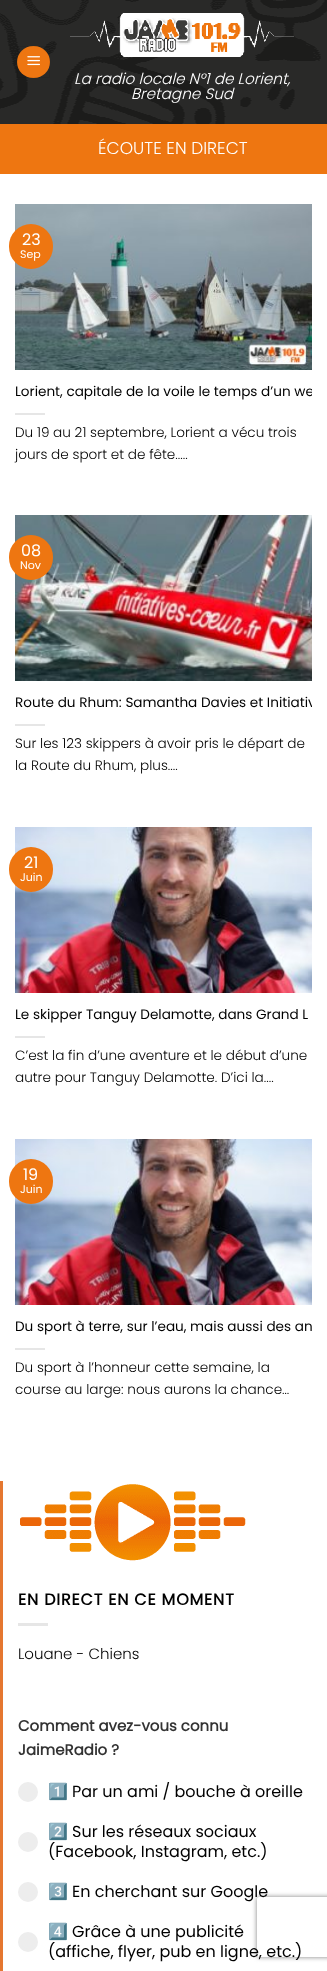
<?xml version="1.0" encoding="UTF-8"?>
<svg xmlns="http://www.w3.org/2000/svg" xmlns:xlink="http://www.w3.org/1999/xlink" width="327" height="1971">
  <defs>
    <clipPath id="clip1"><path d="M 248 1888 h 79 v 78 h -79 z m 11 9 h 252 c 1 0 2 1 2 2 v 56 c 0 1 -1 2 -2 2 h -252 c -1 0 -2 -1 -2 -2 v -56 c 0 -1 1 -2 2 -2 z" clip-rule="evenodd" /></clipPath>
    <clipPath id="clip2"><rect x="15" y="383" width="297" height="17" /></clipPath>
    <clipPath id="clip3"><rect x="15" y="694" width="297" height="17" /></clipPath>
  </defs>
  <rect width="100%" height="100%" fill="#ffffff" />
  <image x="0" y="0" width="327" height="124" xlink:href="image1.png" />
  <rect x="17" y="46" width="33" height="32" rx="16" fill="#ee7611" />
  <rect x="17.5" y="46.5" width="32" height="31" fill="none" stroke="#000000" stroke-opacity="0.05" />
  <image x="27" y="56" width="13" height="10" xlink:href="image2.png" />
  <image x="70" y="13" width="224" height="44" xlink:href="image3.png" />
  <rect y="124" width="327" height="50" fill="#ee7611" />
  <image x="15" y="204" width="297" height="166" xlink:href="image4.png" />
  <rect x="9" y="224" width="44" height="45" rx="22" fill="#ee7611" />
  <rect x="15" y="413" width="30" height="2" fill="#e6e6e6" />
  <image x="15" y="515" width="297" height="166" xlink:href="image5.png" />
  <rect x="9" y="535" width="44" height="45" rx="22" fill="#ee7611" />
  <rect x="15" y="724" width="30" height="2" fill="#e6e6e6" />
  <image x="15" y="827" width="297" height="166" xlink:href="image6.png" />
  <rect x="9" y="847" width="44" height="45" rx="22" fill="#ee7611" />
  <rect x="15" y="1036" width="30" height="2" fill="#e6e6e6" />
  <image x="15" y="1139" width="297" height="166" xlink:href="image7.png" />
  <rect x="9" y="1159" width="44" height="45" rx="22" fill="#ee7611" />
  <rect x="15" y="1348" width="30" height="2" fill="#e6e6e6" />
  <rect y="1481" width="3" height="490" fill="#e57730" />
  <image x="20" y="1484" width="226" height="77" xlink:href="image8.png" />
  <rect x="18" y="1623" width="30" height="3" fill="#e6e6e6" />
  <image x="19" y="1647" width="120" height="13" xlink:href="image9.png" />
  <circle cx="28" cy="1792" r="10" fill="#ededed" />
  <circle cx="28" cy="1842" r="10" fill="#ededed" />
  <circle cx="28" cy="1892" r="10" fill="#ededed" />
  <circle cx="28" cy="1942" r="10" fill="#ededed" />
  <g clip-path="url(#clip1)">
    <rect x="257" y="1897" width="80" height="60" rx="2" fill="#808080" filter="blur(2.5px)" />
  </g>
  <text x="74" y="84" style="font-family: Poppins; font-size: 15.25px; font-weight: 300; font-style: italic; fill: #ffffff">La radio locale N°1 de Lorient,</text>
  <text x="131" y="99" style="font-family: Poppins; font-size: 15.25px; font-weight: 300; font-style: italic; fill: #ffffff">Bretagne Sud</text>
  <text x="98" y="154" style="font-family: Poppins; font-size: 17px; font-weight: 300; fill: #ffffff">ÉCOUTE EN DIRECT</text>
  <text x="22" y="245" style="font-family: Poppins; font-size: 16px; fill: #ffffff">23</text>
  <text x="20" y="258" style="font-family: Poppins; font-size: 11px; fill: #ffffff">Sep</text>
  <g clip-path="url(#clip2)">
    <text x="15" y="396" style="font-family: Poppins; font-size: 13.6px; fill: #000000">Lorient, capitale de la voile le temps d’un we</text>
  </g>
  <text x="15" y="437" style="font-family: Poppins; font-size: 13.6px; font-weight: 300; fill: #000000">Du 19 au 21 septembre, Lorient a vécu trois</text>
  <text x="15" y="459" style="font-family: Poppins; font-size: 13.6px; font-weight: 300; fill: #000000">jours de sport et de fête.....</text>
  <text x="21" y="556" style="font-family: Poppins; font-size: 16px; fill: #ffffff">08</text>
  <text x="20" y="569" style="font-family: Poppins; font-size: 11px; fill: #ffffff">Nov</text>
  <g clip-path="url(#clip3)">
    <text x="15" y="707" style="font-family: Poppins; font-size: 13.6px; fill: #000000">Route du Rhum: Samantha Davies et Initiativ</text>
  </g>
  <text x="15" y="748" style="font-family: Poppins; font-size: 13.6px; font-weight: 300; fill: #000000">Sur les 123 skippers à avoir pris le départ de</text>
  <text x="15" y="770" style="font-family: Poppins; font-size: 13.6px; font-weight: 300; fill: #000000">la Route du Rhum, plus....</text>
  <text x="24" y="868" style="font-family: Poppins; font-size: 16px; fill: #ffffff">21</text>
  <text x="20" y="881" style="font-family: Poppins; font-size: 11px; fill: #ffffff">Juin</text>
  <text x="15" y="1019" style="font-family: Poppins; font-size: 13.6px; fill: #000000">Le skipper Tanguy Delamotte, dans Grand L</text>
  <text x="15" y="1060" style="font-family: Poppins; font-size: 13.6px; font-weight: 300; fill: #000000">C’est la fin d’une aventure et le début d’une</text>
  <text x="15" y="1082" style="font-family: Poppins; font-size: 13.6px; font-weight: 300; fill: #000000">autre pour Tanguy Delamotte. D’ici la....</text>
  <text x="23" y="1180" style="font-family: Poppins; font-size: 16px; fill: #ffffff">19</text>
  <text x="20" y="1193" style="font-family: Poppins; font-size: 11px; fill: #ffffff">Juin</text>
  <text x="15" y="1331" style="font-family: Poppins; font-size: 13.6px; fill: #000000">Du sport à terre, sur l’eau, mais aussi des an</text>
  <text x="15" y="1372" style="font-family: Poppins; font-size: 13.6px; font-weight: 300; fill: #000000">Du sport à l’honneur cette semaine, la</text>
  <text x="15" y="1394" style="font-family: Poppins; font-size: 13.6px; font-weight: 300; fill: #000000">course au large: nous aurons la chance…</text>
  <text x="18" y="1605" style="font-family: Poppins; font-size: 16px; font-weight: bold; letter-spacing: 0.8px; fill: #000000">EN DIRECT EN CE MOMENT</text>
  <text x="18" y="1731" style="font-family: Poppins; font-size: 15px; font-weight: bold; fill: #333333">Comment avez-vous connu</text>
  <text x="18" y="1755" style="font-family: Poppins; font-size: 15px; font-weight: bold; fill: #333333">JaimeRadio ?</text>
  <text x="48" y="1797" style="font-family: Noto Color Emoji; font-size: 16px; fill: #000000">1️⃣</text>
  <text x="72" y="1797" style="font-family: Poppins; font-size: 16px; fill: #000000">Par un ami / bouche à oreille</text>
  <text x="48" y="1837" style="font-family: Noto Color Emoji; font-size: 16px; fill: #000000">2️⃣</text>
  <text x="72" y="1837" style="font-family: Poppins; font-size: 16px; fill: #000000">Sur les réseaux sociaux</text>
  <text x="48" y="1857" style="font-family: Poppins; font-size: 16px; fill: #000000">(Facebook, Instagram, etc.)</text>
  <text x="48" y="1897" style="font-family: Noto Color Emoji; font-size: 16px; fill: #000000">3️⃣</text>
  <text x="72" y="1897" style="font-family: Poppins; font-size: 16px; fill: #000000">En cherchant sur Google</text>
  <text x="48" y="1937" style="font-family: Noto Color Emoji; font-size: 16px; fill: #000000">4️⃣</text>
  <text x="72" y="1937" style="font-family: Poppins; font-size: 16px; fill: #000000">Grâce à une publicité</text>
  <text x="48" y="1957" style="font-family: Poppins; font-size: 16px; fill: #000000">(affiche, flyer, pub en ligne, etc.)</text>
</svg>
